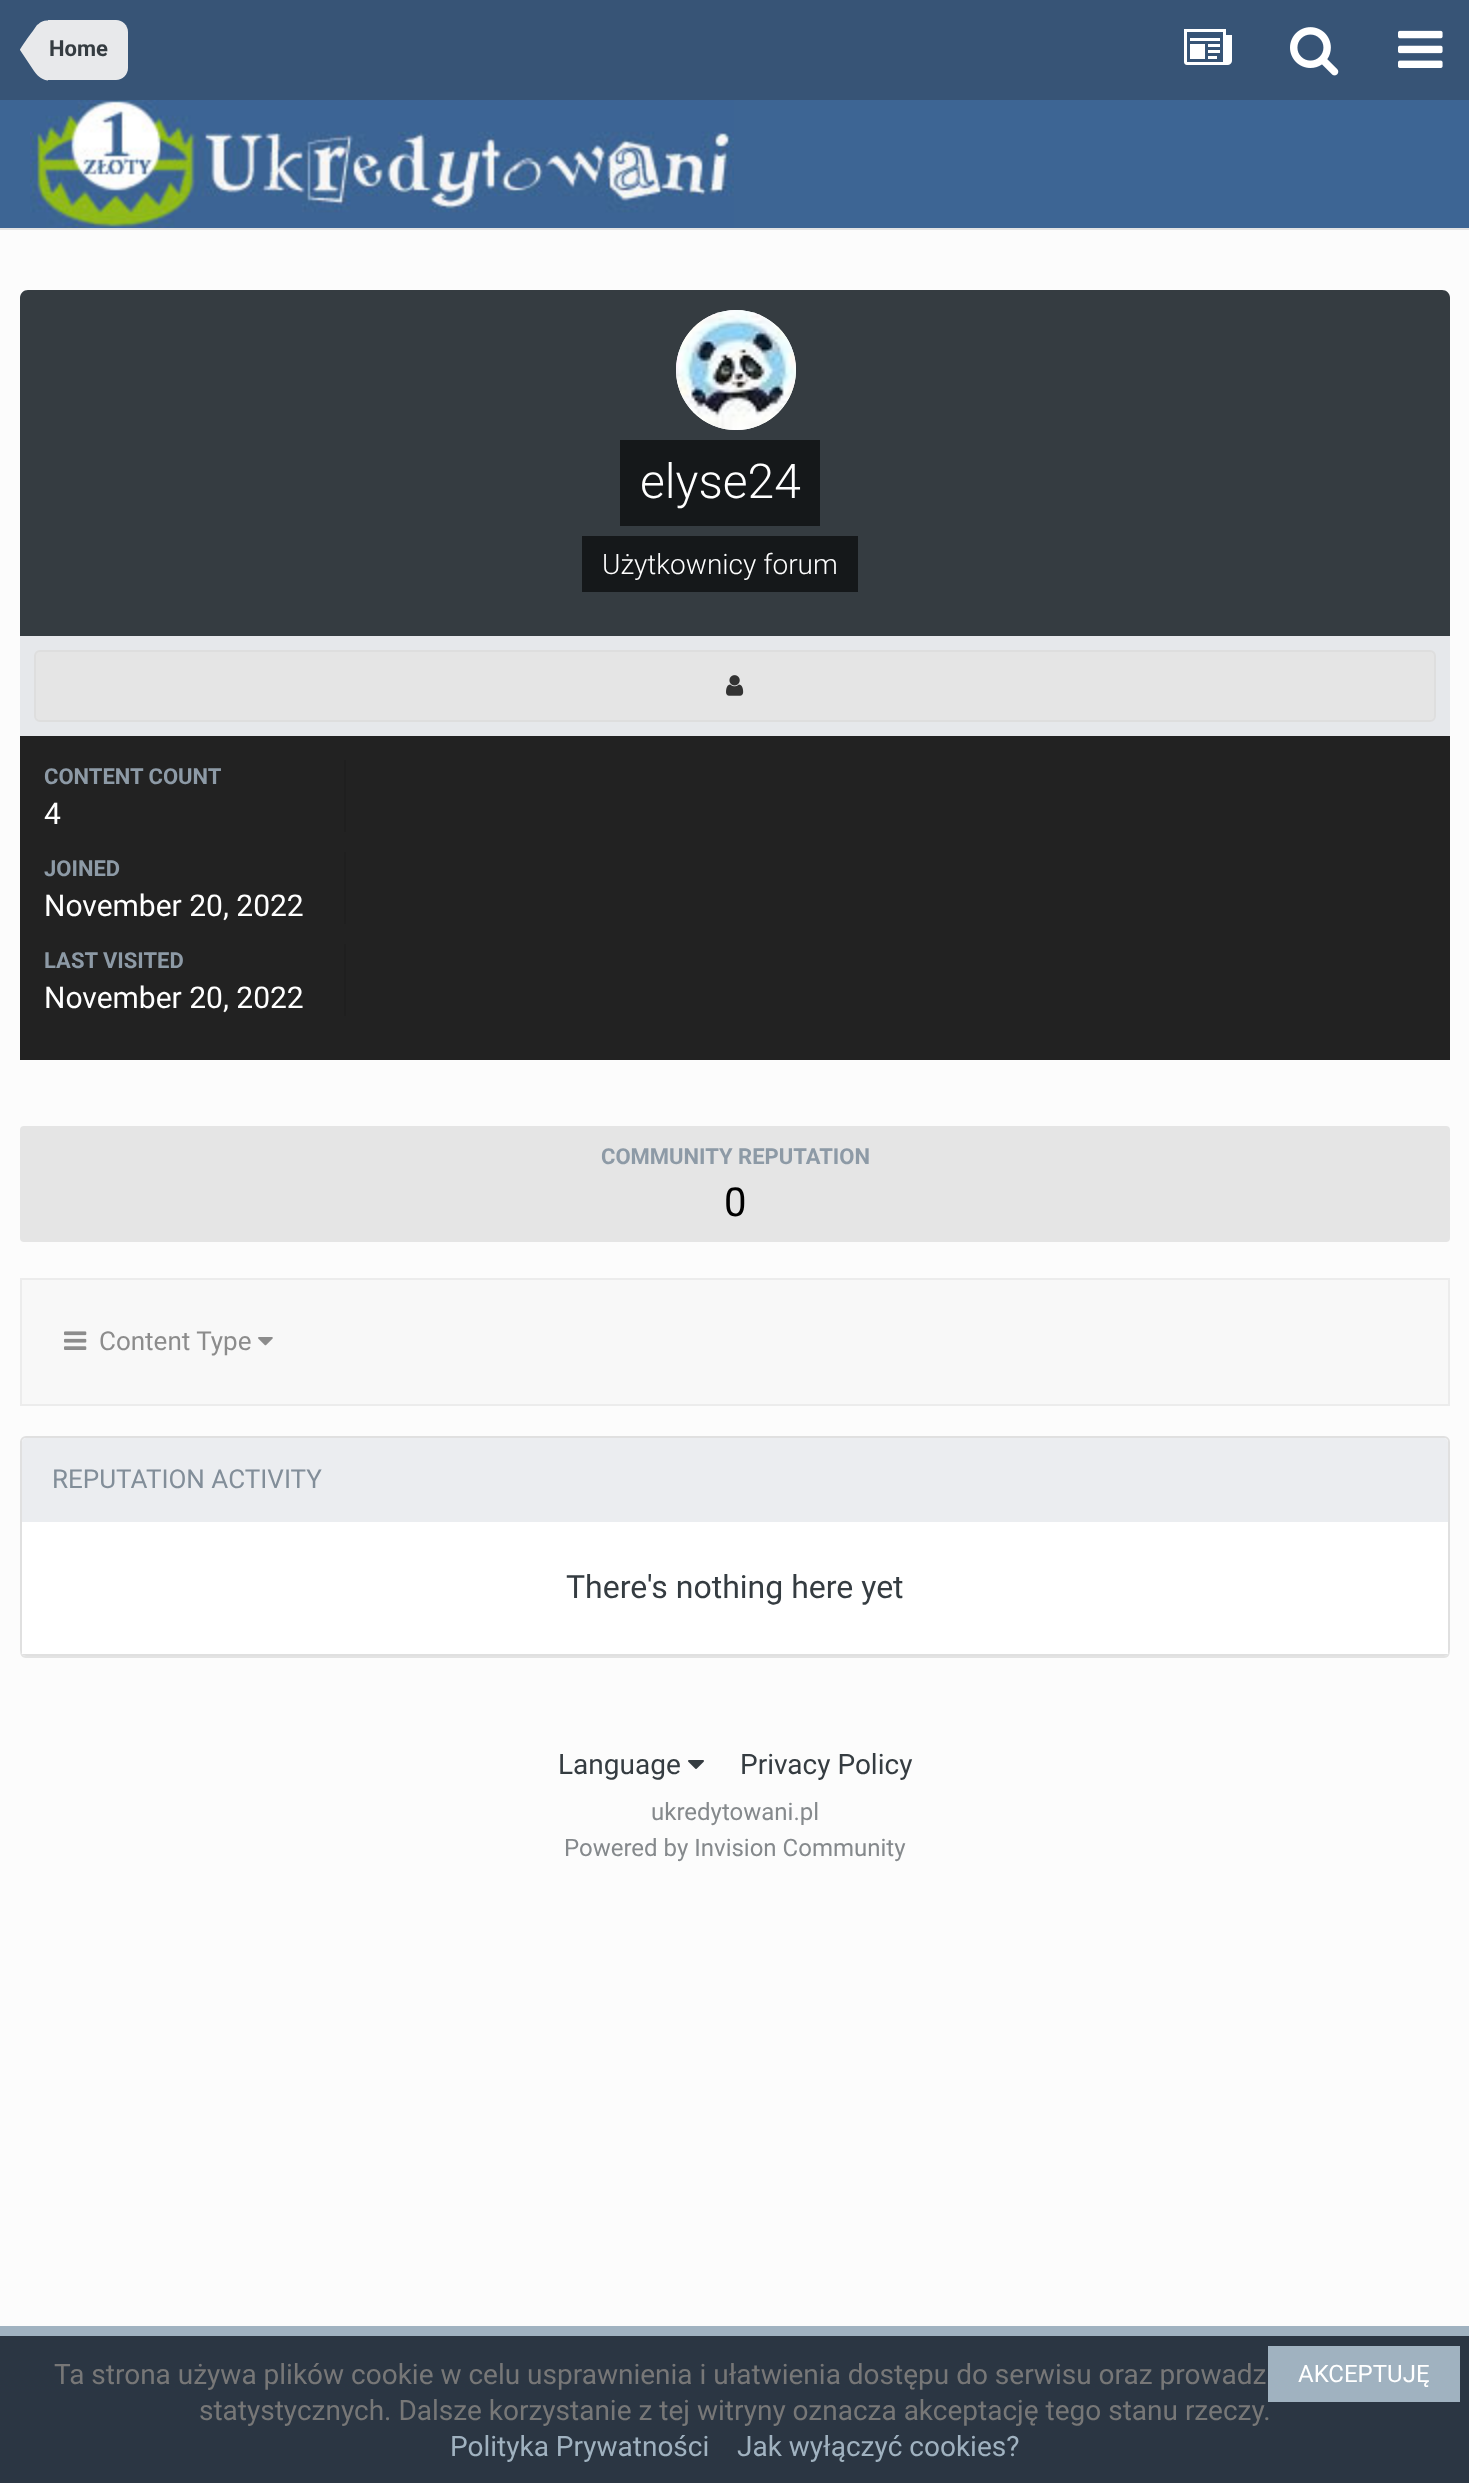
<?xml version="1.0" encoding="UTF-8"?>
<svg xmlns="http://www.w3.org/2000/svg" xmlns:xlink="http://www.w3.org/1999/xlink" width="1469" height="2483">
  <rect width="100%" height="100%" fill="#fcfcfc" />
  <rect y="228" width="1469" height="2" fill="#e3e3e3" />
  <rect width="1469" height="100" fill="#375476" />
  <path d="M 48 20 h 68 c 6.5 0 12 5.5 12 12 v 36 c 0 6.5 -5.5 12 -12 12 h -68 z" fill="#e8e9eb" />
  <path d="M 48 50 v 30.5 c -4.5 -0.5 -9.5 -3 -14 -9.5 l -14 -21 z m 0 0 h -28 c 0 -1.5 11 -16.5 12.5 -18.5 l 4.5 -6.5 l 1.5 -1 c 2.5 -2.5 6 -4 9.5 -3.5 z" fill="#e8e9eb" />
  <image x="1184" y="29" width="48" height="36" xlink:href="image1.png" />
  <image x="1290" y="27" width="49" height="49" xlink:href="image2.png" />
  <image x="1398" y="30" width="45" height="38" xlink:href="image3.png" />
  <rect y="100" width="1469" height="128" fill="#3d6594" />
  <image x="30" y="100" width="704" height="128" xlink:href="image4.png" />
  <path d="M 28 290 h 1414 c 4.5 0 8 3.5 8 8 v 338 h -1430 v -338 c 0 -4.5 3.5 -8 8 -8 z" fill="#353c41" />
  <circle cx="736" cy="370" r="60" fill="#ffffff" />
  <image x="676" y="310" width="120" height="120" xlink:href="image5.png" />
  <rect x="620" y="440" width="200" height="86" fill="#15181a" />
  <rect x="582" y="536" width="276" height="56" fill="#15181a" />
  <rect x="20" y="636" width="1430" height="100" fill="#e6e8eb" />
  <rect x="35" y="651" width="1400" height="70" rx="5" fill="#e5e5e5" stroke="#dedede" stroke-width="2" />
  <image x="726" y="675" width="18" height="21" xlink:href="image6.png" />
  <rect x="20" y="736" width="1430" height="324" fill="#222222" />
  <rect x="344" y="760" width="2" height="72" fill="#1f1f1f" />
  <rect x="344" y="852" width="2" height="72" fill="#1f1f1f" />
  <rect x="344" y="944" width="2" height="72" fill="#1f1f1f" />
  <rect x="20" y="1126" width="1430" height="116" rx="4" fill="#e5e5e5" />
  <rect x="21" y="1279" width="1428" height="126" fill="#f8f8f8" stroke="#ececec" stroke-width="2" />
  <image x="64" y="1331" width="23" height="19" xlink:href="image7.png" />
  <image x="258" y="1337" width="15" height="9" xlink:href="image8.png" />
  <path d="M 20 1650 c 0 4 1 8 6 8 h 1418 c 5 0 6 -4 6 -8 c 0 3 -3 6 -6 6 h -1418 c -3 0 -6 -3 -6 -6 z" fill="#e3e3e3" />
  <rect x="21" y="1437" width="1428" height="218" rx="5" fill="none" stroke="#e0e0e0" stroke-width="2" />
  <path d="M 26 1438 h 1418 c 2 0 4 2 4 4 v 80 h -1426 v -80 c 0 -2 2 -4 4 -4 z" fill="#ebedf0" />
  <rect x="22" y="1522" width="1426" height="132" fill="#ffffff" />
  <image x="688" y="1760" width="16" height="9" xlink:href="image9.png" />
  <rect y="2336" width="1469" height="147" fill="#2b3643" />
  <rect y="2326" width="1469" height="10" fill="#a0b2c0" />
  <text x="49" y="56" style="font-family: Roboto; font-size: 22px; font-weight: bold; fill: #353c41">Home</text>
  <text x="640" y="498" style="font-family: Roboto; font-size: 48px; font-weight: 300; fill: #ffffff">elyse24</text>
  <text x="602" y="574" style="font-family: Roboto; font-size: 28px; font-weight: 300; fill: #ffffff">Użytkownicy forum</text>
  <text x="44" y="784" style="font-family: Roboto; font-size: 22px; font-weight: bold; fill: #8d9aa6">CONTENT COUNT</text>
  <text x="44" y="824" style="font-family: Roboto; font-size: 30px; fill: #ffffff">4</text>
  <text x="44" y="876" style="font-family: Roboto; font-size: 22px; font-weight: bold; fill: #8d9aa6">JOINED</text>
  <text x="44" y="916" style="font-family: Roboto; font-size: 30px; fill: #ffffff">November 20, 2022</text>
  <text x="44" y="968" style="font-family: Roboto; font-size: 22px; font-weight: bold; fill: #8d9aa6">LAST VISITED</text>
  <text x="44" y="1008" style="font-family: Roboto; font-size: 30px; fill: #ffffff">November 20, 2022</text>
  <text x="601" y="1164" style="font-family: Roboto; font-size: 22px; font-weight: bold; fill: #8d9aa6">COMMUNITY REPUTATION</text>
  <text x="724" y="1216" style="font-family: Roboto; font-size: 40px; fill: #000000">0</text>
  <text x="99" y="1350" style="font-family: Roboto; font-size: 26px; fill: #8c8c8c">Content Type</text>
  <text x="52" y="1488" style="font-family: Roboto; font-size: 26px; fill: #828e99">REPUTATION ACTIVITY</text>
  <text x="566" y="1598" style="font-family: Roboto; font-size: 32px; fill: #353c41">There's nothing here yet</text>
  <text x="558" y="1774" style="font-family: Roboto; font-size: 28px; fill: #353c41">Language</text>
  <text x="740" y="1774" style="font-family: Roboto; font-size: 28px; fill: #353c41">Privacy Policy</text>
  <text x="651" y="1820" style="font-family: Roboto; font-size: 24px; fill: #85898c">ukredytowani.pl</text>
  <text x="564" y="1856" style="font-family: Roboto; font-size: 24px; fill: #85898c">Powered by Invision Community</text>
  <text x="54" y="2384" style="font-family: Roboto; font-size: 28px; fill: #777777">Ta strona używa plików cookie w celu usprawnienia i ułatwienia dostępu do serwisu oraz prowadz</text>
  <text x="199" y="2420" style="font-family: Roboto; font-size: 28px; fill: #777777">statystycznych. Dalsze korzystanie z tej witryny oznacza akceptację tego stanu rzeczy.</text>
  <rect x="1268" y="2346" width="192" height="56" fill="#a0b2c0" />
  <text x="1298" y="2382" style="font-family: Roboto; font-size: 24px; fill: #ffffff">AKCEPTUJĘ</text>
  <text x="450" y="2456" style="font-family: Roboto; font-size: 28px; fill: #a0b2c0">Polityka Prywatności</text>
  <text x="737" y="2456" style="font-family: Roboto; font-size: 28px; fill: #a0b2c0">Jak wyłączyć cookies?</text>
</svg>
